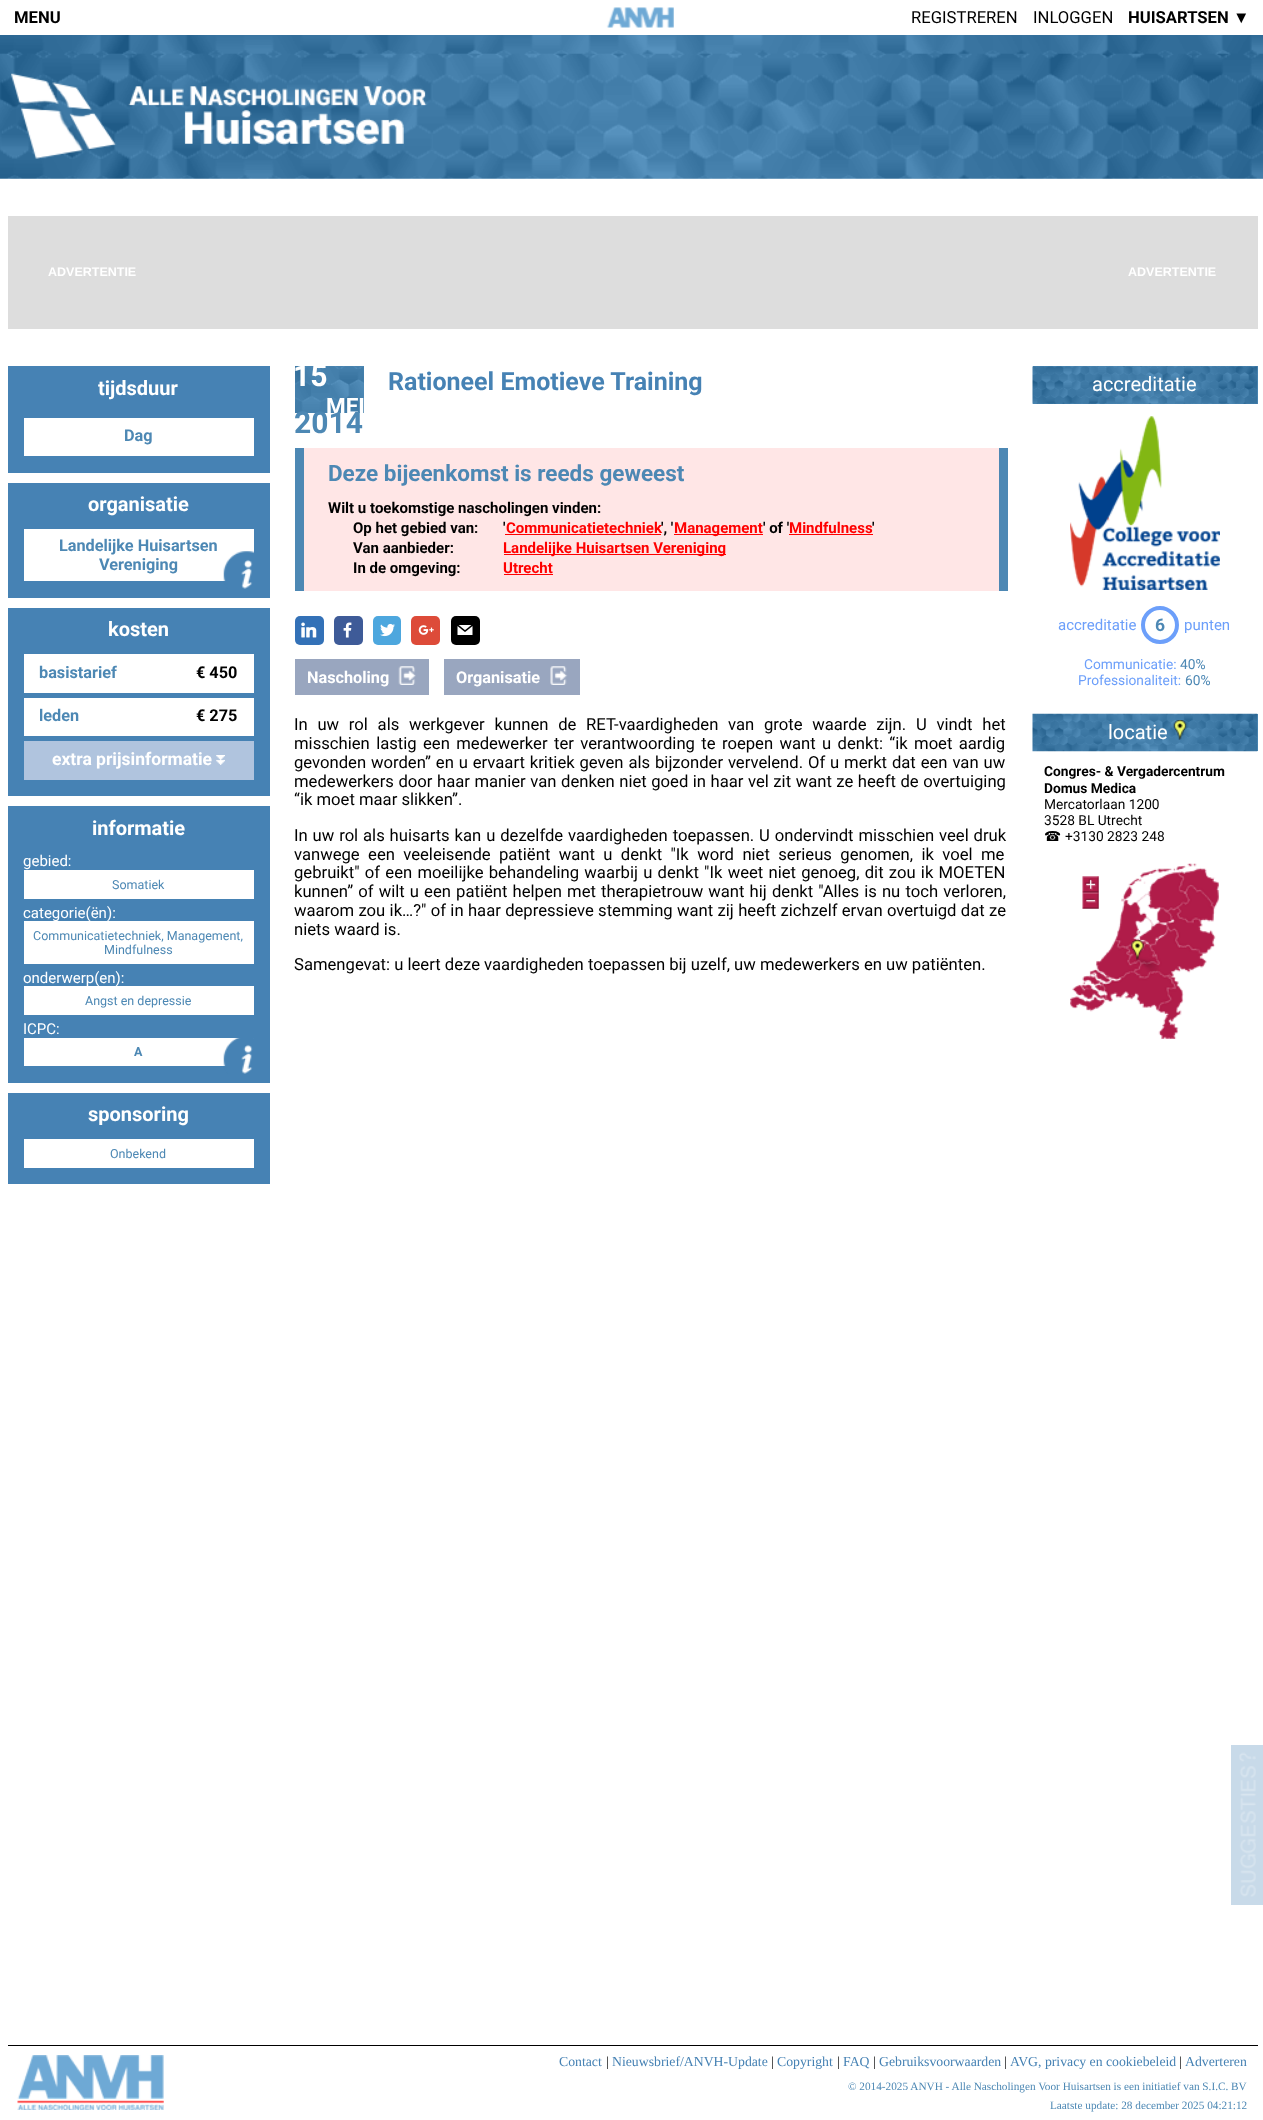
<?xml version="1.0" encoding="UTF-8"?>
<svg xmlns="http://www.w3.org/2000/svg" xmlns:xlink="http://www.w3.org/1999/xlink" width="1263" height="2120">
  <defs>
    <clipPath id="clip1"><rect x="8" y="366" width="1250" height="818" /></clipPath>
  </defs>
  <rect width="100%" height="100%" fill="#ffffff" />
  <image x="606" y="7" width="68" height="21" xlink:href="image1.png" />
  <image x="0" y="35" width="1263" height="144" xlink:href="image2.png" />
  <image x="11" y="73" width="416" height="86" xlink:href="image3.png" />
  <rect x="8" y="216" width="1250" height="113" fill="#dddddd" />
  <rect x="8" y="366" width="262" height="107" fill="#4682b4" />
  <rect x="24" y="418" width="230" height="38" fill="#ffffff" />
  <rect x="8" y="483" width="262" height="115" fill="#4682b4" />
  <rect x="24" y="529" width="230" height="52" fill="#ffffff" />
  <image x="223" y="551" width="31" height="38" xlink:href="image4.png" />
  <rect x="8" y="608" width="262" height="188" fill="#4682b4" />
  <rect x="24" y="654" width="230" height="39" fill="#ffffff" />
  <rect x="24" y="698" width="230" height="38" fill="#ffffff" />
  <rect x="24" y="741" width="230" height="39" fill="#b0c4de" />
  <image x="216" y="755" width="9" height="10" xlink:href="image5.png" />
  <rect x="8" y="806" width="262" height="277" fill="#4682b4" />
  <rect x="24" y="870" width="230" height="29" fill="#ffffff" />
  <rect x="24" y="921" width="230" height="43" fill="#ffffff" />
  <rect x="24" y="986" width="230" height="29" fill="#ffffff" />
  <rect x="24" y="1038" width="230" height="28" fill="#ffffff" />
  <image x="223" y="1038" width="31" height="36" xlink:href="image6.png" />
  <rect x="8" y="1093" width="262" height="91" fill="#4682b4" />
  <rect x="24" y="1139" width="230" height="29" fill="#ffffff" />
  <rect x="295" y="366" width="69" height="47" fill="#4d88b4" />
  <image x="295" y="366" width="69" height="47" xlink:href="image7.png" />
  <rect x="304" y="448" width="695" height="143" fill="#ffe6e6" />
  <rect x="999" y="448" width="9" height="143" fill="#4d88b4" />
  <rect x="295" y="448" width="9" height="143" fill="#4d88b4" />
  <rect x="505" y="534" width="156" height="1" fill="#ff0000" />
  <rect x="674" y="534" width="89" height="1" fill="#ff0000" />
  <rect x="789" y="534" width="84" height="1" fill="#ff0000" />
  <rect x="504" y="554" width="222" height="1" fill="#ff0000" />
  <rect x="504" y="574" width="49" height="1" fill="#ff0000" />
  <rect x="295" y="616" width="29" height="29" rx="5" fill="#3371b7" />
  <image x="301" y="622" width="16" height="16" xlink:href="image8.png" />
  <rect x="334" y="616" width="29" height="29" rx="5" fill="#3e5b98" />
  <image x="343" y="622" width="9" height="16" xlink:href="image9.png" />
  <rect x="373" y="616" width="28" height="29" rx="5" fill="#4da7de" />
  <image x="380" y="623" width="15" height="14" xlink:href="image10.png" />
  <rect x="411" y="616" width="29" height="29" rx="5" fill="#dd4b39" />
  <image x="418" y="625" width="16" height="10" xlink:href="image11.png" />
  <rect x="451" y="616" width="29" height="29" rx="5" fill="#000000" />
  <image x="457" y="625" width="16" height="10" xlink:href="image12.png" />
  <rect x="295" y="659" width="134" height="36" fill="#99a6bf" />
  <image x="398" y="666" width="18" height="19" xlink:href="image13.png" />
  <rect x="444" y="659" width="136" height="36" fill="#99a6bf" />
  <image x="550" y="666" width="18" height="19" xlink:href="image14.png" />
  <rect x="1033" y="366" width="225" height="38" fill="#4d88b4" />
  <image x="1032" y="366" width="226" height="38" xlink:href="image15.png" />
  <image x="1070" y="416" width="150" height="174" xlink:href="image16.png" />
  <circle cx="1160" cy="625" r="17" fill="none" stroke="#6c9ffa" stroke-width="4" />
  <rect x="1257" y="714" width="1" height="37" fill="#4d88b4" />
  <image x="1032" y="713" width="226" height="39" xlink:href="image17.png" />
  <image x="1173" y="720" width="14" height="20" xlink:href="image18.png" />
  <image x="1070" y="863" width="149" height="176" xlink:href="image19.png" />
  <image x="1082" y="876" width="17" height="33" xlink:href="image20.png" />
  <image x="1131" y="940" width="28" height="32" xlink:href="image21.png" />
  <rect x="1231" y="1745" width="32" height="160" fill="#c8dae9" />
  <image x="1239" y="1752" width="17" height="145" xlink:href="image22.png" />
  <rect x="8" y="2045" width="1250" height="1" fill="#000000" />
  <image x="17" y="2055" width="147" height="55" xlink:href="image23.png" />
  <text x="14" y="23" style="font-family: Roboto; font-size: 16.65px; font-weight: bold; fill: #000000">MENU</text>
  <text x="911" y="23" style="font-family: Roboto; font-size: 16.65px; fill: #000000">REGISTREREN</text>
  <text x="1033" y="23" style="font-family: Roboto; font-size: 16.65px; fill: #000000">INLOGGEN</text>
  <text x="1128" y="23" style="font-family: Roboto; font-size: 16.65px; font-weight: bold; fill: #000000">HUISARTSEN</text>
  <text x="1233" y="23" style="font-family: Liberation Sans; font-size: 16.65px; font-weight: bold; fill: #000000">▼</text>
  <text x="48" y="276" style="font-family: Liberation Sans; font-size: 12.5px; font-weight: bold; fill: #ffffff">ADVERTENTIE</text>
  <text x="1128" y="276" style="font-family: Liberation Sans; font-size: 12.5px; font-weight: bold; fill: #ffffff">ADVERTENTIE</text>
  <text x="98" y="395" style="font-family: Roboto; font-size: 20px; font-weight: bold; fill: #ffffff">tijdsduur</text>
  <text x="124" y="441" style="font-family: Roboto; font-size: 16.25px; font-weight: bold; fill: #4d88b4">Dag</text>
  <text x="88" y="511" style="font-family: Roboto; font-size: 20px; font-weight: bold; fill: #ffffff">organisatie</text>
  <text x="59" y="551" style="font-family: Roboto; font-size: 16.25px; font-weight: bold; fill: #4d88b4">Landelijke Huisartsen</text>
  <text x="99" y="570" style="font-family: Roboto; font-size: 16.25px; font-weight: bold; fill: #4d88b4">Vereniging</text>
  <text x="108" y="636" style="font-family: Roboto; font-size: 20px; font-weight: bold; fill: #ffffff">kosten</text>
  <text x="39" y="678" style="font-family: Roboto; font-size: 16.25px; font-weight: bold; fill: #4d88b4">basistarief</text>
  <text x="196" y="678" style="font-family: Roboto; font-size: 16.25px; font-weight: bold; fill: #000000">€ 450</text>
  <text x="39" y="721" style="font-family: Roboto; font-size: 16.25px; font-weight: bold; fill: #4d88b4">leden</text>
  <text x="196" y="721" style="font-family: Roboto; font-size: 16.25px; font-weight: bold; fill: #000000">€ 275</text>
  <text x="52" y="765" style="font-family: Roboto; font-size: 17.5px; font-weight: bold; fill: #ffffff">extra prijsinformatie</text>
  <text x="92" y="835" style="font-family: Roboto; font-size: 20px; font-weight: bold; fill: #ffffff">informatie</text>
  <text x="23" y="866" style="font-family: Roboto; font-size: 15px; fill: #ffffff">gebied:</text>
  <text x="112" y="889" style="font-family: Roboto; font-size: 12.5px; fill: #4d88b4">Somatiek</text>
  <text x="23" y="918" style="font-family: Roboto; font-size: 15px; fill: #ffffff">categorie(ën):</text>
  <text x="33" y="940" style="font-family: Roboto; font-size: 12.5px; fill: #4d88b4">Communicatietechniek, Management,</text>
  <text x="104" y="954" style="font-family: Roboto; font-size: 12.5px; fill: #4d88b4">Mindfulness</text>
  <text x="23" y="983" style="font-family: Roboto; font-size: 15px; fill: #ffffff">onderwerp(en):</text>
  <text x="85" y="1005" style="font-family: Roboto; font-size: 12.5px; fill: #4d88b4">Angst en depressie</text>
  <text x="23" y="1034" style="font-family: Roboto; font-size: 15px; fill: #ffffff">ICPC:</text>
  <text x="134" y="1056" style="font-family: Roboto; font-size: 12.5px; font-weight: bold; fill: #4d88b4">A</text>
  <text x="88" y="1121" style="font-family: Roboto; font-size: 20px; font-weight: bold; fill: #ffffff">sponsoring</text>
  <text x="110" y="1158" style="font-family: Roboto; font-size: 12.5px; fill: #4d88b4">Onbekend</text>
  <g clip-path="url(#clip1)">
    <text x="293" y="386" style="font-family: Roboto; font-size: 30px; font-weight: bold; fill: #ffffff">15</text>
  </g>
  <text x="326" y="414" style="font-family: Roboto; font-size: 22.5px; font-weight: bold; fill: #ffffff">MEI</text>
  <text x="294" y="433" style="font-family: Roboto; font-size: 30px; font-weight: bold; fill: #4d88b4">2014</text>
  <text x="388" y="390" style="font-family: Roboto; font-size: 25px; font-weight: bold; fill: #4682b4">Rationeel Emotieve Training</text>
  <text x="328" y="481" style="font-family: Roboto; font-size: 22.5px; font-weight: bold; fill: #4d88b4">Deze bijeenkomst is reeds geweest</text>
  <text x="328" y="513" style="font-family: Roboto; font-size: 15px; font-weight: bold; fill: #000000">Wilt u toekomstige nascholingen vinden:</text>
  <text x="353" y="533" style="font-family: Roboto; font-size: 15px; font-weight: bold; fill: #000000">Op het gebied van:</text>
  <text x="503" y="533" style="font-family: Roboto; font-size: 15px; font-weight: bold; fill: #000000">'</text>
  <text x="506" y="533" style="font-family: Roboto; font-size: 15px; font-weight: bold; fill: #ff0000">Communicatietechniek</text>
  <text x="661" y="533" style="font-family: Roboto; font-size: 15px; font-weight: bold; fill: #000000">', '</text>
  <text x="674" y="533" style="font-family: Roboto; font-size: 15px; font-weight: bold; fill: #ff0000">Management</text>
  <text x="763" y="533" style="font-family: Roboto; font-size: 15px; font-weight: bold; fill: #000000">' of '</text>
  <text x="789" y="533" style="font-family: Roboto; font-size: 15px; font-weight: bold; fill: #ff0000">Mindfulness</text>
  <text x="872" y="533" style="font-family: Roboto; font-size: 15px; font-weight: bold; fill: #000000">'</text>
  <text x="353" y="553" style="font-family: Roboto; font-size: 15px; font-weight: bold; fill: #000000">Van aanbieder:</text>
  <text x="503" y="553" style="font-family: Roboto; font-size: 15px; font-weight: bold; fill: #ff0000">Landelijke Huisartsen Vereniging</text>
  <text x="353" y="573" style="font-family: Roboto; font-size: 15px; font-weight: bold; fill: #000000">In de omgeving:</text>
  <text x="503" y="573" style="font-family: Roboto; font-size: 15px; font-weight: bold; fill: #ff0000">Utrecht</text>
  <text x="307" y="683" style="font-family: Roboto; font-size: 16.25px; font-weight: bold; fill: #ffffff">Nascholing</text>
  <text x="456" y="683" style="font-family: Roboto; font-size: 16.25px; font-weight: bold; fill: #ffffff">Organisatie</text>
  <text x="294" y="730" word-spacing="5.6" style="font-family: Roboto; font-size: 16.65px; fill: #000000">In uw rol als werkgever kunnen de RET-vaardigheden van grote waarde zijn. U vindt het</text>
  <text x="294" y="749" word-spacing="2.25" style="font-family: Roboto; font-size: 16.65px; fill: #000000">misschien lastig een medewerker ter verantwoording te roepen want u denkt: “ik moet aardig</text>
  <text x="294" y="768" word-spacing="0.75" style="font-family: Roboto; font-size: 16.65px; fill: #000000">gevonden worden” en u ervaart kritiek geven als bijzonder vervelend. Of u merkt dat een van uw</text>
  <text x="294" y="787" word-spacing="0.4" style="font-family: Roboto; font-size: 16.65px; fill: #000000">medewerkers door haar manier van denken niet goed in haar vel zit want ze heeft de overtuiging</text>
  <text x="294" y="805" style="font-family: Roboto; font-size: 16.65px; fill: #000000">“ik moet maar slikken”.</text>
  <text x="294" y="841" word-spacing="0.75" style="font-family: Roboto; font-size: 16.65px; fill: #000000">In uw rol als huisarts kan u dezelfde vaardigheden toepassen. U ondervindt misschien veel druk</text>
  <text x="294" y="860" word-spacing="4.25" style="font-family: Roboto; font-size: 16.65px; fill: #000000">vanwege een veeleisende patiënt want u denkt "Ik word niet serieus genomen, ik voel me</text>
  <text x="294" y="878" word-spacing="1.1" style="font-family: Roboto; font-size: 16.65px; fill: #000000">gebruikt" of een moeilijke behandeling waarbij u denkt "Ik weet niet genoeg, dit zou ik MOETEN</text>
  <text x="294" y="897" word-spacing="1" style="font-family: Roboto; font-size: 16.65px; fill: #000000">kunnen” of wilt u een patiënt helpen met therapietrouw want hij denkt "Alles is nu toch verloren,</text>
  <text x="294" y="916" word-spacing="0.2" style="font-family: Roboto; font-size: 16.65px; fill: #000000">waarom zou ik…?" of in haar depressieve stemming want zij heeft zichzelf ervan overtuigd dat ze</text>
  <text x="294" y="935" style="font-family: Roboto; font-size: 16.65px; fill: #000000">niets waard is.</text>
  <text x="294" y="970" style="font-family: Roboto; font-size: 16.65px; fill: #000000">Samengevat: u leert deze vaardigheden toepassen bij uzelf, uw medewerkers en uw patiënten.</text>
  <text x="1092" y="391" style="font-family: Roboto; font-size: 20px; fill: #ffffff">accreditatie</text>
  <text x="1058" y="630" style="font-family: Roboto; font-size: 15px; fill: #6c9ffa">accreditatie</text>
  <text x="1155" y="631" style="font-family: Roboto; font-size: 17.5px; font-weight: bold; fill: #4d88b4">6</text>
  <text x="1184" y="630" style="font-family: Roboto; font-size: 15px; fill: #6c9ffa">punten</text>
  <text x="1084" y="669" style="font-family: Roboto; font-size: 13.75px; fill: #6c9ffa">Communicatie:</text>
  <text x="1180" y="669" style="font-family: Roboto; font-size: 13.75px; fill: #4d88b4">40%</text>
  <text x="1078" y="685" style="font-family: Roboto; font-size: 13.75px; fill: #6c9ffa">Professionaliteit:</text>
  <text x="1185" y="685" style="font-family: Roboto; font-size: 13.75px; fill: #4d88b4">60%</text>
  <text x="1108" y="739" style="font-family: Roboto; font-size: 20px; fill: #ffffff">locatie</text>
  <text x="1044" y="776" style="font-family: Roboto; font-size: 13.75px; font-weight: bold; fill: #000000">Congres- &amp; Vergadercentrum</text>
  <text x="1044" y="793" style="font-family: Roboto; font-size: 13.75px; font-weight: bold; fill: #000000">Domus Medica</text>
  <text x="1044" y="809" style="font-family: Roboto; font-size: 13.75px; fill: #000000">Mercatorlaan 1200</text>
  <text x="1044" y="825" style="font-family: Roboto; font-size: 13.75px; fill: #000000">3528 BL Utrecht</text>
  <text x="1044" y="841" style="font-family: DejaVu Sans; font-size: 13.75px; fill: #000000">☎</text>
  <text x="1065" y="841" style="font-family: Roboto; font-size: 13.75px; fill: #000000">+3130 2823 248</text>
  <text x="559" y="2066" style="font-family: Liberation Serif; font-size: 13.75px; fill: #4682b4">Contact</text>
  <text x="606" y="2066" style="font-family: Liberation Serif; font-size: 13.75px; fill: #000000">|</text>
  <text x="612" y="2066" style="font-family: Liberation Serif; font-size: 13.75px; fill: #4682b4">Nieuwsbrief/ANVH-Update</text>
  <text x="771" y="2066" style="font-family: Liberation Serif; font-size: 13.75px; fill: #000000">|</text>
  <text x="777" y="2066" style="font-family: Liberation Serif; font-size: 13.75px; fill: #4682b4">Copyright</text>
  <text x="837" y="2066" style="font-family: Liberation Serif; font-size: 13.75px; fill: #000000">|</text>
  <text x="843" y="2066" style="font-family: Liberation Serif; font-size: 13.75px; fill: #4682b4">FAQ</text>
  <text x="873" y="2066" style="font-family: Liberation Serif; font-size: 13.75px; fill: #000000">|</text>
  <text x="879" y="2066" style="font-family: Liberation Serif; font-size: 13.75px; fill: #4682b4">Gebruiksvoorwaarden</text>
  <text x="1004" y="2066" style="font-family: Liberation Serif; font-size: 13.75px; fill: #000000">|</text>
  <text x="1010" y="2066" style="font-family: Liberation Serif; font-size: 13.75px; fill: #4682b4">AVG, privacy en cookiebeleid</text>
  <text x="1179" y="2066" style="font-family: Liberation Serif; font-size: 13.75px; fill: #000000">|</text>
  <text x="1185" y="2066" style="font-family: Liberation Serif; font-size: 13.75px; fill: #4682b4">Adverteren</text>
  <text x="848" y="2090" style="font-family: Liberation Serif; font-size: 11.25px; fill: #4d88b4">© 2014-2025 ANVH - Alle Nascholingen Voor Huisartsen is een initiatief van S.I.C. BV</text>
  <text x="1050" y="2109" style="font-family: Liberation Serif; font-size: 11.25px; fill: #4d88b4">Laatste update: 28 december 2025 04:21:12</text>
</svg>
